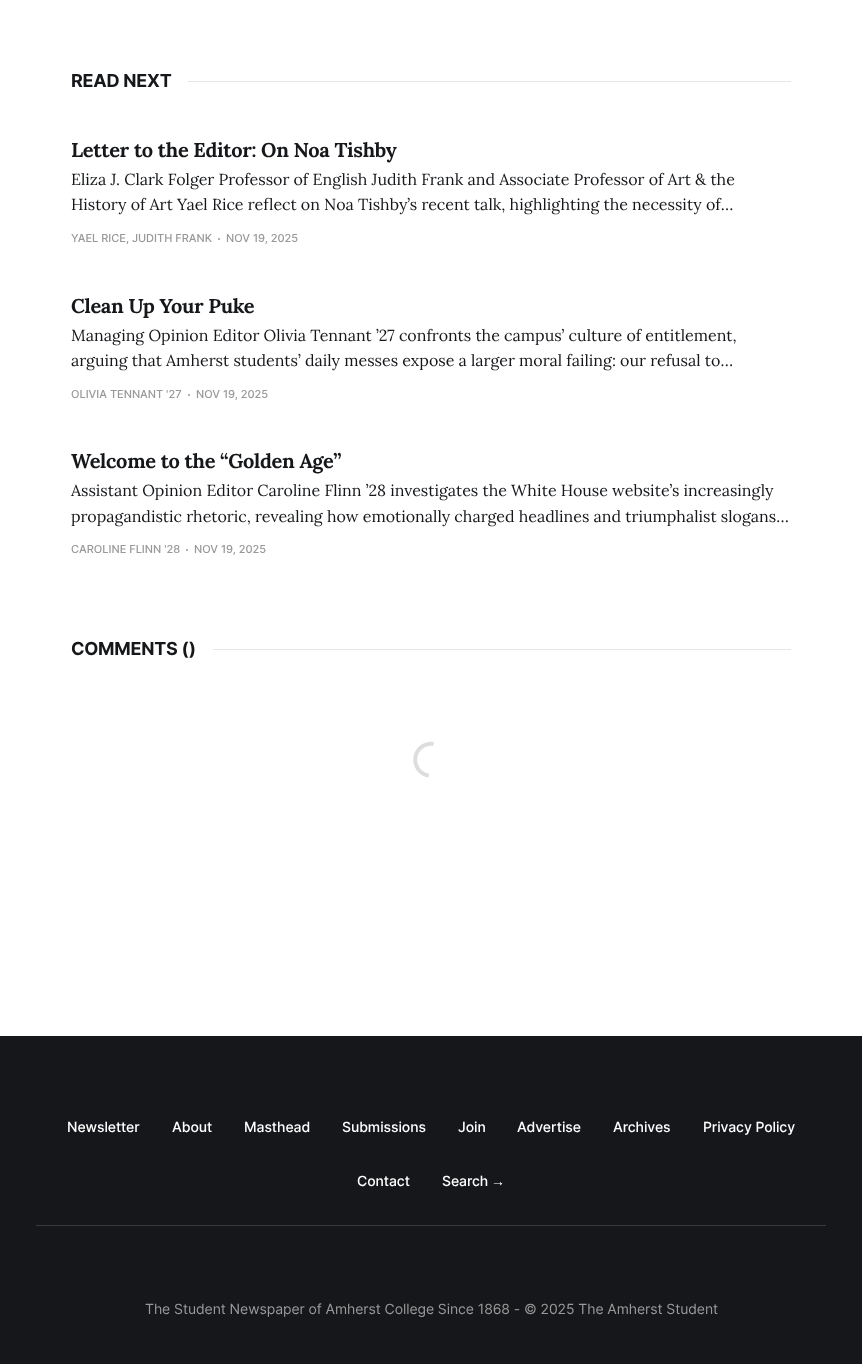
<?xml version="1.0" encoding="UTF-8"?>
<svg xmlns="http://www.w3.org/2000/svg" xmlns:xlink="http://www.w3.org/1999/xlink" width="862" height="1364">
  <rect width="100%" height="100%" fill="#ffffff" />
  <rect x="188" y="81" width="603" height="1" fill="#e6e6e6" />
  <circle cx="219" cy="239" r="1" fill="#999999" />
  <circle cx="189" cy="395" r="1" fill="#999999" />
  <circle cx="187" cy="550" r="1" fill="#999999" />
  <rect x="213" y="649" width="578" height="1" fill="#e6e6e6" />
  <image x="413" y="741" width="21" height="37" xlink:href="image1.png" />
  <rect y="1036" width="862" height="328" fill="#15171a" />
  <rect x="36" y="1225" width="790" height="1" fill="#383a3c" />
  <text x="71" y="87" style="font-family: Inter; font-size: 18px; font-weight: bold; letter-spacing: -0.25px; fill: #15171a">READ NEXT</text>
  <text x="71" y="157" style="font-family: Lora; font-size: 20px; font-weight: bold; letter-spacing: -0.3px; fill: #15171a">Letter to the Editor: On Noa Tishby</text>
  <text x="71" y="185" style="font-family: Lora; font-size: 16px; fill: #15171a">Eliza J. Clark Folger Professor of English Judith Frank and Associate Professor of Art &amp; the</text>
  <text x="71" y="210" style="font-family: Lora; font-size: 16px; fill: #15171a">History of Art Yael Rice reflect on Noa Tishby’s recent talk, highlighting the necessity of…</text>
  <text x="71" y="242" style="font-family: Inter; font-size: 11px; font-weight: 500; fill: #999999">YAEL RICE, JUDITH FRANK</text>
  <text x="226" y="242" style="font-family: Inter; font-size: 11px; font-weight: 500; fill: #999999">NOV 19, 2025</text>
  <text x="71" y="313" style="font-family: Lora; font-size: 20px; font-weight: bold; letter-spacing: -0.3px; fill: #15171a">Clean Up Your Puke</text>
  <text x="71" y="341" style="font-family: Lora; font-size: 16px; fill: #15171a">Managing Opinion Editor Olivia Tennant ’27 confronts the campus’ culture of entitlement,</text>
  <text x="71" y="366" style="font-family: Lora; font-size: 16px; fill: #15171a">arguing that Amherst students’ daily messes expose a larger moral failing: our refusal to…</text>
  <text x="71" y="398" style="font-family: Inter; font-size: 11px; font-weight: 500; fill: #999999">OLIVIA TENNANT '27</text>
  <text x="196" y="398" style="font-family: Inter; font-size: 11px; font-weight: 500; fill: #999999">NOV 19, 2025</text>
  <text x="71" y="468" style="font-family: Lora; font-size: 20px; font-weight: bold; letter-spacing: -0.3px; fill: #15171a">Welcome to the “Golden Age”</text>
  <text x="71" y="496" style="font-family: Lora; font-size: 16px; fill: #15171a">Assistant Opinion Editor Caroline Flinn ’28 investigates the White House website’s increasingly</text>
  <text x="71" y="522" style="font-family: Lora; font-size: 16px; fill: #15171a">propagandistic rhetoric, revealing how emotionally charged headlines and triumphalist slogans…</text>
  <text x="71" y="553" style="font-family: Inter; font-size: 11px; font-weight: 500; fill: #999999">CAROLINE FLINN '28</text>
  <text x="194" y="553" style="font-family: Inter; font-size: 11px; font-weight: 500; fill: #999999">NOV 19, 2025</text>
  <text x="71" y="655" style="font-family: Inter; font-size: 18px; font-weight: bold; letter-spacing: -0.25px; fill: #15171a">COMMENTS ()</text>
  <text x="67" y="1132" style="font-family: Inter; font-size: 14px; font-weight: 500; letter-spacing: -0.08px; fill: #ffffff">Newsletter</text>
  <text x="172" y="1132" style="font-family: Inter; font-size: 14px; font-weight: 500; letter-spacing: -0.08px; fill: #ffffff">About</text>
  <text x="244" y="1132" style="font-family: Inter; font-size: 14px; font-weight: 500; letter-spacing: -0.08px; fill: #ffffff">Masthead</text>
  <text x="342" y="1132" style="font-family: Inter; font-size: 14px; font-weight: 500; letter-spacing: -0.08px; fill: #ffffff">Submissions</text>
  <text x="458" y="1132" style="font-family: Inter; font-size: 14px; font-weight: 500; letter-spacing: -0.08px; fill: #ffffff">Join</text>
  <text x="517" y="1132" style="font-family: Inter; font-size: 14px; font-weight: 500; letter-spacing: -0.08px; fill: #ffffff">Advertise</text>
  <text x="613" y="1132" style="font-family: Inter; font-size: 14px; font-weight: 500; letter-spacing: -0.08px; fill: #ffffff">Archives</text>
  <text x="703" y="1132" style="font-family: Inter; font-size: 14px; font-weight: 500; letter-spacing: -0.08px; fill: #ffffff">Privacy Policy</text>
  <text x="357" y="1186" style="font-family: Inter; font-size: 14px; font-weight: 500; letter-spacing: -0.08px; fill: #ffffff">Contact</text>
  <text x="442" y="1186" style="font-family: Inter; font-size: 14px; font-weight: 500; letter-spacing: -0.08px; fill: #ffffff">Search</text>
  <text x="491" y="1186" style="font-family: Liberation Sans; font-size: 14px; letter-spacing: -0.08px; fill: #ffffff">→</text>
  <text x="145" y="1314" style="font-family: Inter; font-size: 14px; letter-spacing: -0.08px; fill: #999999">The Student Newspaper of Amherst College Since 1868 - © 2025 The Amherst Student</text>
</svg>
